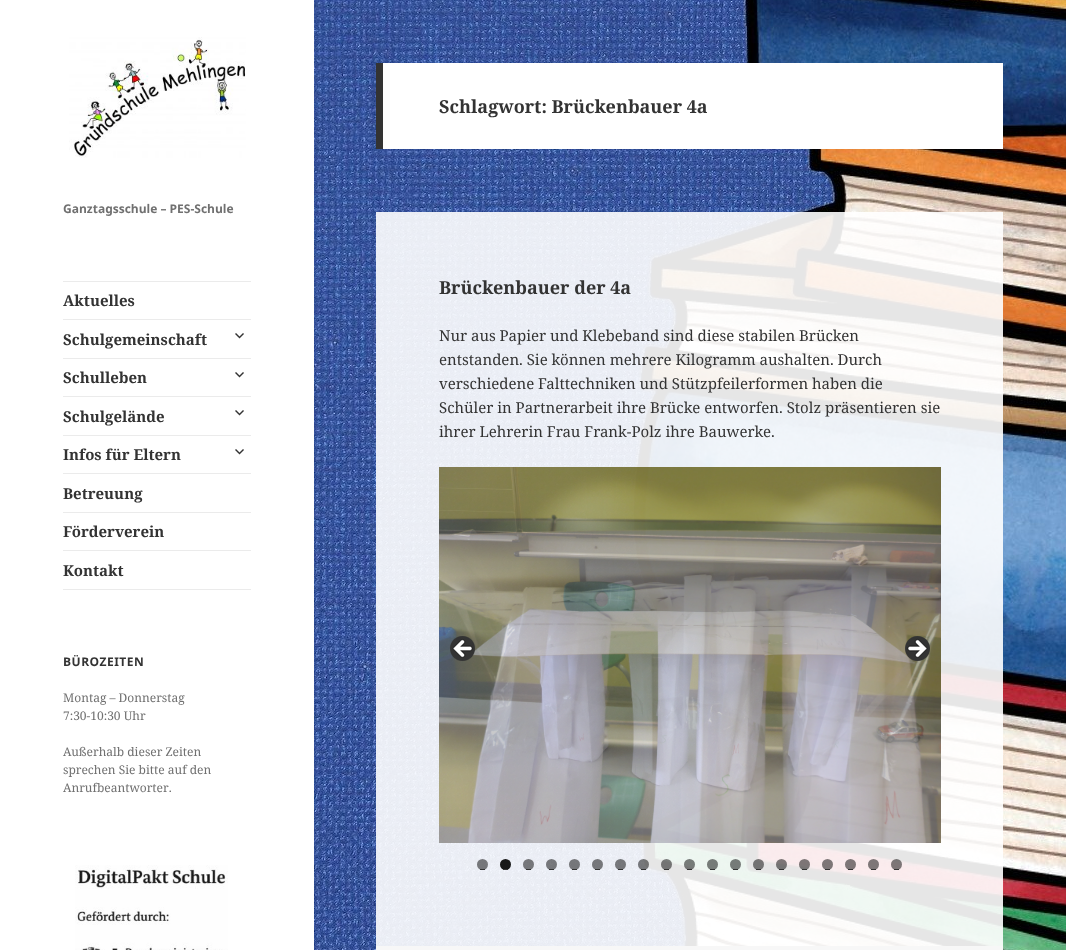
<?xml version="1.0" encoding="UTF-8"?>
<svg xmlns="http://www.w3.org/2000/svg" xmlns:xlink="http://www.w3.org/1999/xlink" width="1066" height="950">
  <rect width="100%" height="100%" fill="#ffffff" />
  <image x="314" y="0" width="752" height="950" xlink:href="image1.png" />
  <image x="69" y="37" width="177" height="121" xlink:href="image2.png" />
  <rect x="63" y="281" width="188" height="1" fill="#ebebeb" />
  <rect x="63" y="589" width="188" height="1" fill="#ebebeb" />
  <rect x="63" y="319" width="188" height="1" fill="#ebebeb" />
  <image x="235" y="333" width="9" height="6" xlink:href="image3.png" />
  <rect x="63" y="358" width="188" height="1" fill="#ebebeb" />
  <image x="235" y="372" width="9" height="6" xlink:href="image3.png" />
  <rect x="63" y="396" width="188" height="1" fill="#ebebeb" />
  <image x="235" y="410" width="9" height="6" xlink:href="image3.png" />
  <rect x="63" y="435" width="188" height="1" fill="#ebebeb" />
  <image x="235" y="449" width="9" height="6" xlink:href="image3.png" />
  <rect x="63" y="473" width="188" height="1" fill="#ebebeb" />
  <rect x="63" y="512" width="188" height="1" fill="#ebebeb" />
  <rect x="63" y="550" width="188" height="1" fill="#ebebeb" />
  <image x="75" y="865" width="153" height="85" xlink:href="image4.png" />
  <rect x="383" y="63" width="620" height="86" fill="#ffffff" />
  <rect x="376" y="63" width="7" height="86" fill="#333333" />
  <rect x="376" y="212" width="627" height="734" fill="#ffffff" fill-opacity="0.9" />
  <image x="439" y="467" width="502" height="376" xlink:href="image5.png" />
  <image x="439" y="467" width="502" height="376" xlink:href="image6.png" />
  <image x="450" y="636" width="25" height="25" xlink:href="image7.png" />
  <image x="905" y="636" width="25" height="25" xlink:href="image8.png" />
  <circle cx="482.5" cy="864.5" r="5.5" fill="#000000" fill-opacity="0.5" />
  <rect x="480" y="869" width="5" height="1" fill="#333333" />
  <circle cx="505.5" cy="864.5" r="5.5" fill="#000000" fill-opacity="0.9" />
  <rect x="503" y="869" width="5" height="1" fill="#333333" />
  <circle cx="528.5" cy="864.5" r="5.5" fill="#000000" fill-opacity="0.5" />
  <rect x="526" y="869" width="5" height="1" fill="#333333" />
  <circle cx="551.5" cy="864.5" r="5.5" fill="#000000" fill-opacity="0.5" />
  <rect x="549" y="869" width="5" height="1" fill="#333333" />
  <circle cx="574.5" cy="864.5" r="5.5" fill="#000000" fill-opacity="0.5" />
  <rect x="572" y="869" width="5" height="1" fill="#333333" />
  <circle cx="597.5" cy="864.5" r="5.5" fill="#000000" fill-opacity="0.5" />
  <rect x="595" y="869" width="5" height="1" fill="#333333" />
  <circle cx="620.5" cy="864.5" r="5.5" fill="#000000" fill-opacity="0.5" />
  <rect x="618" y="869" width="5" height="1" fill="#333333" />
  <circle cx="643.5" cy="864.5" r="5.5" fill="#000000" fill-opacity="0.5" />
  <rect x="641" y="869" width="5" height="1" fill="#333333" />
  <circle cx="666.5" cy="864.5" r="5.5" fill="#000000" fill-opacity="0.5" />
  <rect x="664" y="869" width="5" height="1" fill="#333333" />
  <circle cx="689.5" cy="864.5" r="5.5" fill="#000000" fill-opacity="0.5" />
  <rect x="687" y="869" width="5" height="1" fill="#333333" />
  <circle cx="712.5" cy="864.5" r="5.5" fill="#767b78" />
  <rect x="710" y="869" width="5" height="1" fill="#333333" />
  <circle cx="735.5" cy="864.5" r="5.5" fill="#767b78" />
  <rect x="733" y="869" width="5" height="1" fill="#333333" />
  <circle cx="758.5" cy="864.5" r="5.5" fill="#000000" fill-opacity="0.5" />
  <rect x="756" y="869" width="5" height="1" fill="#333333" />
  <circle cx="781.5" cy="864.5" r="5.5" fill="#000000" fill-opacity="0.5" />
  <rect x="779" y="869" width="5" height="1" fill="#333333" />
  <circle cx="804.5" cy="864.5" r="5.5" fill="#000000" fill-opacity="0.5" />
  <rect x="802" y="869" width="5" height="1" fill="#333333" />
  <circle cx="827.5" cy="864.5" r="5.5" fill="#000000" fill-opacity="0.5" />
  <rect x="825" y="869" width="5" height="1" fill="#333333" />
  <circle cx="850.5" cy="864.5" r="5.5" fill="#000000" fill-opacity="0.5" />
  <rect x="848" y="869" width="5" height="1" fill="#333333" />
  <circle cx="873.5" cy="864.5" r="5.5" fill="#7d7677" />
  <rect x="871" y="869" width="5" height="1" fill="#333333" />
  <circle cx="896.5" cy="864.5" r="5.5" fill="#000000" fill-opacity="0.5" />
  <rect x="894" y="869" width="5" height="1" fill="#333333" />
  <rect x="376" y="946" width="627" height="4" fill="#f7f7f7" />
  <text x="63" y="213" style="font-family: Noto Sans; font-size: 12px; font-weight: bold; fill: #707070">Ganztagsschule – PES-Schule</text>
  <text x="63" y="306" style="font-family: Noto Serif; font-size: 15px; font-weight: bold; fill: #333333">Aktuelles</text>
  <text x="63" y="345" style="font-family: Noto Serif; font-size: 15px; font-weight: bold; fill: #333333">Schulgemeinschaft</text>
  <text x="63" y="383" style="font-family: Noto Serif; font-size: 15px; font-weight: bold; fill: #333333">Schulleben</text>
  <text x="63" y="422" style="font-family: Noto Serif; font-size: 15px; font-weight: bold; fill: #333333">Schulgelände</text>
  <text x="63" y="460" style="font-family: Noto Serif; font-size: 15px; font-weight: bold; fill: #333333">Infos für Eltern</text>
  <text x="63" y="499" style="font-family: Noto Serif; font-size: 15px; font-weight: bold; fill: #333333">Betreuung</text>
  <text x="63" y="537" style="font-family: Noto Serif; font-size: 15px; font-weight: bold; fill: #333333">Förderverein</text>
  <text x="63" y="576" style="font-family: Noto Serif; font-size: 15px; font-weight: bold; fill: #333333">Kontakt</text>
  <text x="63" y="666" style="font-family: Noto Sans; font-size: 12px; font-weight: bold; letter-spacing: 0.5px; fill: #333333">BÜROZEITEN</text>
  <text x="63" y="702" style="font-family: Noto Serif; font-size: 12px; fill: #707070">Montag – Donnerstag</text>
  <text x="63" y="720" style="font-family: Noto Serif; font-size: 12px; fill: #707070">7:30-10:30 Uhr</text>
  <text x="63" y="756" style="font-family: Noto Serif; font-size: 12px; fill: #707070">Außerhalb dieser Zeiten</text>
  <text x="63" y="774" style="font-family: Noto Serif; font-size: 12px; fill: #707070">sprechen Sie bitte auf den</text>
  <text x="63" y="792" style="font-family: Noto Serif; font-size: 12px; fill: #707070">Anrufbeantworter.</text>
  <text x="439" y="113" style="font-family: Noto Serif; font-size: 18px; font-weight: bold; fill: #333333">Schlagwort: Brückenbauer 4a</text>
  <text x="439" y="294" style="font-family: Noto Serif; font-size: 18px; font-weight: bold; fill: #333333">Brückenbauer der 4a</text>
  <text x="439" y="341" style="font-family: Noto Serif; font-size: 15px; fill: #333333">Nur aus Papier und Klebeband sind diese stabilen Brücken</text>
  <text x="439" y="365" style="font-family: Noto Serif; font-size: 15px; fill: #333333">entstanden. Sie können mehrere Kilogramm aushalten. Durch</text>
  <text x="439" y="389" style="font-family: Noto Serif; font-size: 15px; fill: #333333">verschiedene Falttechniken und Stützpfeilerformen haben die</text>
  <text x="439" y="413" style="font-family: Noto Serif; font-size: 15px; fill: #333333">Schüler in Partnerarbeit ihre Brücke entworfen. Stolz präsentieren sie</text>
  <text x="439" y="437" style="font-family: Noto Serif; font-size: 15px; fill: #333333">ihrer Lehrerin Frau Frank-Polz ihre Bauwerke.</text>
</svg>
